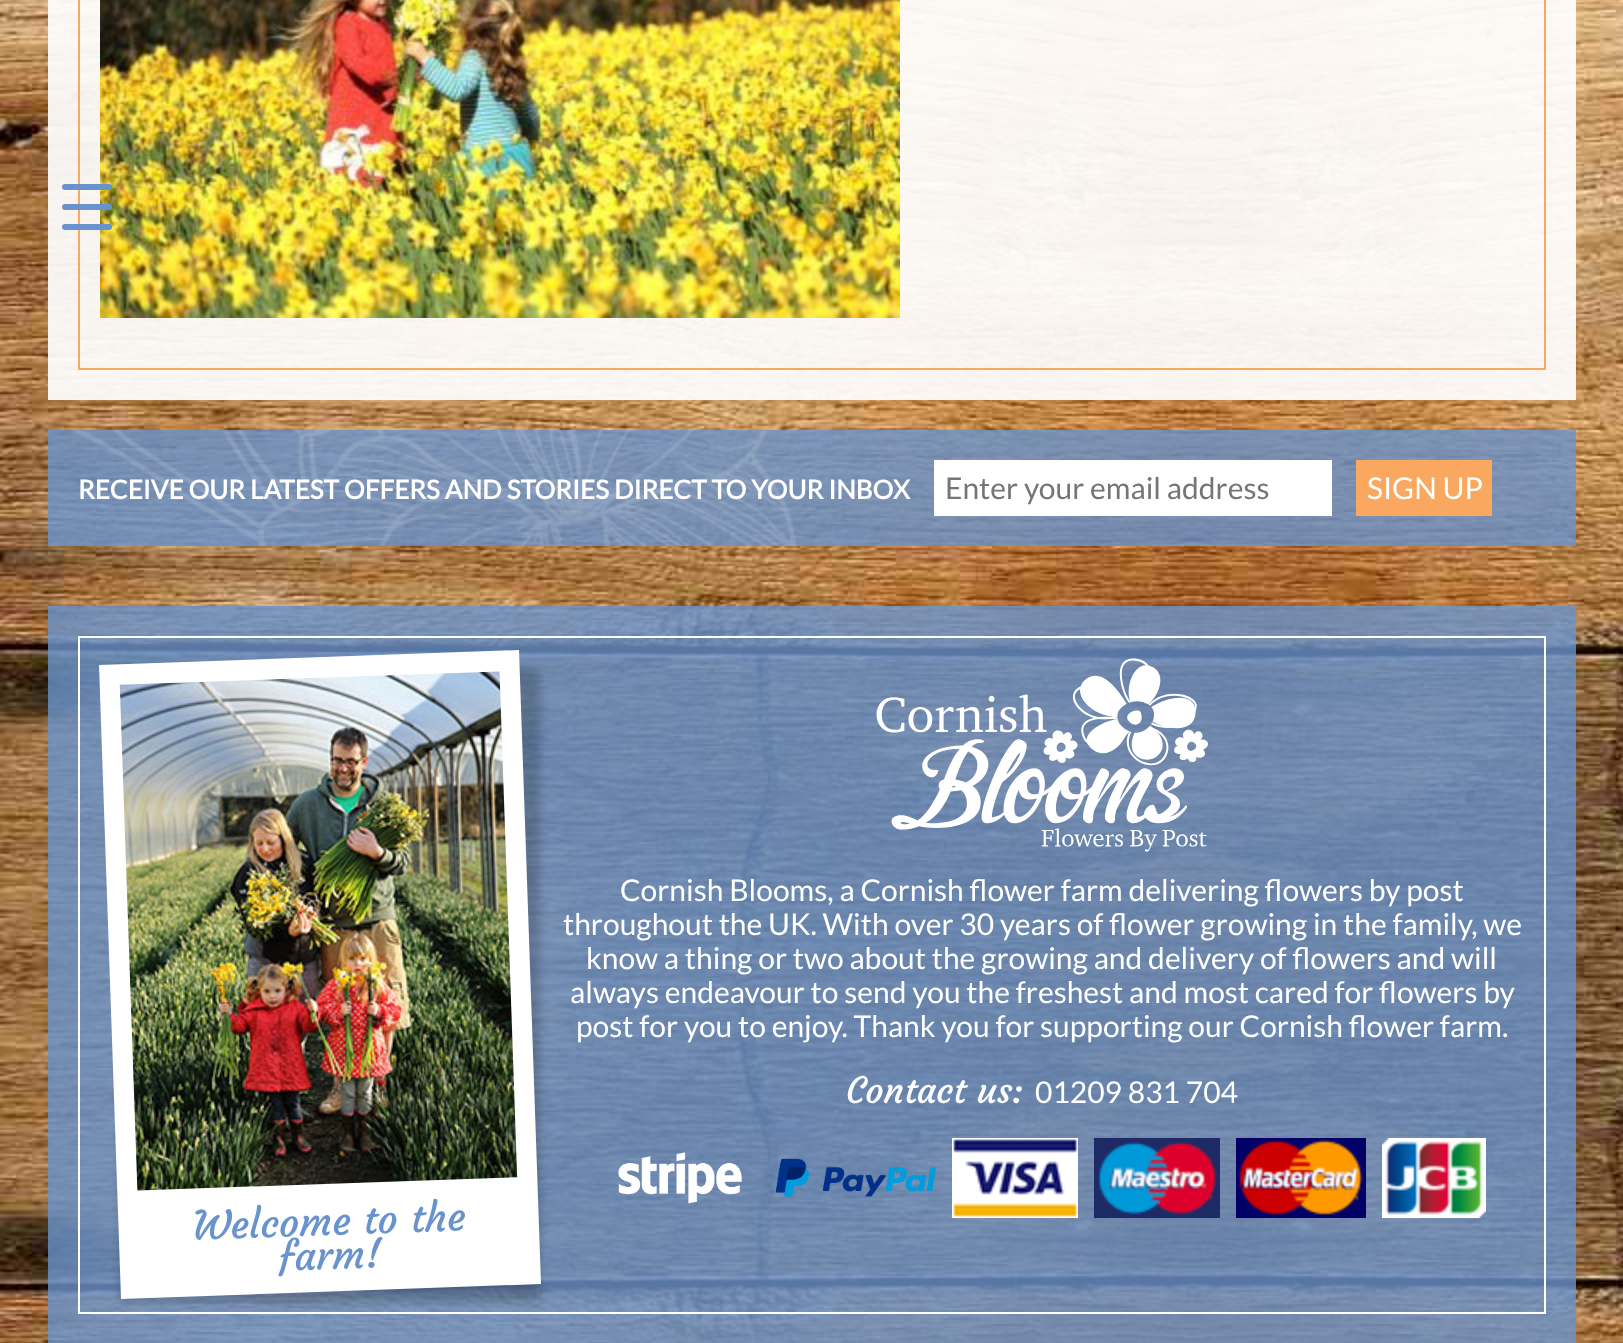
<?xml version="1.0" encoding="UTF-8"?>
<svg xmlns="http://www.w3.org/2000/svg" xmlns:xlink="http://www.w3.org/1999/xlink" width="1623" height="1343">
  <rect width="100%" height="100%" fill="#ffffff" />
  <image x="0" y="0" width="1623" height="1343" xlink:href="image1.png" />
  <rect x="48" width="1528" height="400" fill="#ffffff" fill-opacity="0.92" />
  <rect x="79" y="-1" width="1466" height="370" fill="none" stroke="#faa85f" stroke-width="2" />
  <image x="100" y="0" width="800" height="318" xlink:href="image2.png" />
  <rect x="62" y="204" width="50" height="6" rx="3" fill="#6993cd" />
  <rect x="62" y="184" width="50" height="6" rx="3" fill="#6993cd" />
  <rect x="62" y="224" width="50" height="6" rx="3" fill="#6993cd" />
  <rect x="48" y="430" width="1528" height="116" fill="#6993cd" fill-opacity="0.8" />
  <image x="71" y="430" width="726" height="116" xlink:href="image3.png" />
  <rect x="934" y="460" width="398" height="56" fill="#ffffff" />
  <rect x="1356" y="460" width="136" height="56" fill="#faa85f" />
  <rect x="48" y="606" width="1528" height="737" fill="#6993cd" fill-opacity="0.8" />
  <rect x="79" y="637" width="1466" height="676" fill="none" stroke="#ffffff" stroke-width="2" />
  <image x="876" y="658" width="332" height="194" xlink:href="image4.png" />
  <image x="618" y="1152" width="124" height="52" xlink:href="image5.png" />
  <image x="776" y="1158" width="160" height="39" xlink:href="image6.png" />
  <image x="952" y="1138" width="126" height="80" xlink:href="image7.png" />
  <image x="1094" y="1138" width="126" height="80" xlink:href="image8.png" />
  <image x="1236" y="1138" width="130" height="80" xlink:href="image9.png" />
  <image x="1382" y="1138" width="104" height="80" xlink:href="image10.png" />
  <rect x="120" y="668" width="420" height="634" fill="#000000" fill-opacity="0.2" filter="blur(5px)" />
  <path d="M 99 665 l 420 -15 l 22 634 l -420 15 z" fill="#ffffff" />
  <image x="119" y="671" width="399" height="520" xlink:href="image11.png" />
  <text x="78" y="499" style="font-family: Lato; font-size: 26px; font-weight: bold; fill: #ffffff">RECEIVE OUR LATEST OFFERS AND STORIES DIRECT TO YOUR INBOX</text>
  <text x="945" y="499" style="font-family: Lato; font-size: 30px; fill: #757575">Enter your email address</text>
  <text x="1367" y="499" style="font-family: Lato; font-size: 30px; fill: #ffffff">SIGN UP</text>
  <text x="620" y="901" style="font-family: Lato; font-size: 30px; fill: #ffffff">Cornish Blooms, a Cornish flower farm delivering flowers by post</text>
  <text x="563" y="935" style="font-family: Lato; font-size: 30px; fill: #ffffff">throughout the UK. With over 30 years of flower growing in the family, we</text>
  <text x="586" y="969" style="font-family: Lato; font-size: 30px; fill: #ffffff">know a thing or two about the growing and delivery of flowers and will</text>
  <text x="570" y="1003" style="font-family: Lato; font-size: 30px; fill: #ffffff">always endeavour to send you the freshest and most cared for flowers by</text>
  <text x="576" y="1037" style="font-family: Lato; font-size: 30px; fill: #ffffff">post for you to enjoy. Thank you for supporting our Cornish flower farm.</text>
  <text x="846" y="1103" style="font-family: Courgette; font-size: 36px; fill: #ffffff">Contact us:</text>
  <text x="1035" y="1103" style="font-family: Lato; font-size: 30px; fill: #ffffff">01209 831 704</text>
  <text x="193" y="1240" transform="rotate(-2 193 1240)" style="font-family: Courgette; font-size: 40px; fill: #6993cd">Welcome to the</text>
  <text x="279" y="1271" transform="rotate(-2 279 1271)" style="font-family: Courgette; font-size: 40px; fill: #6993cd">farm!</text>
</svg>
